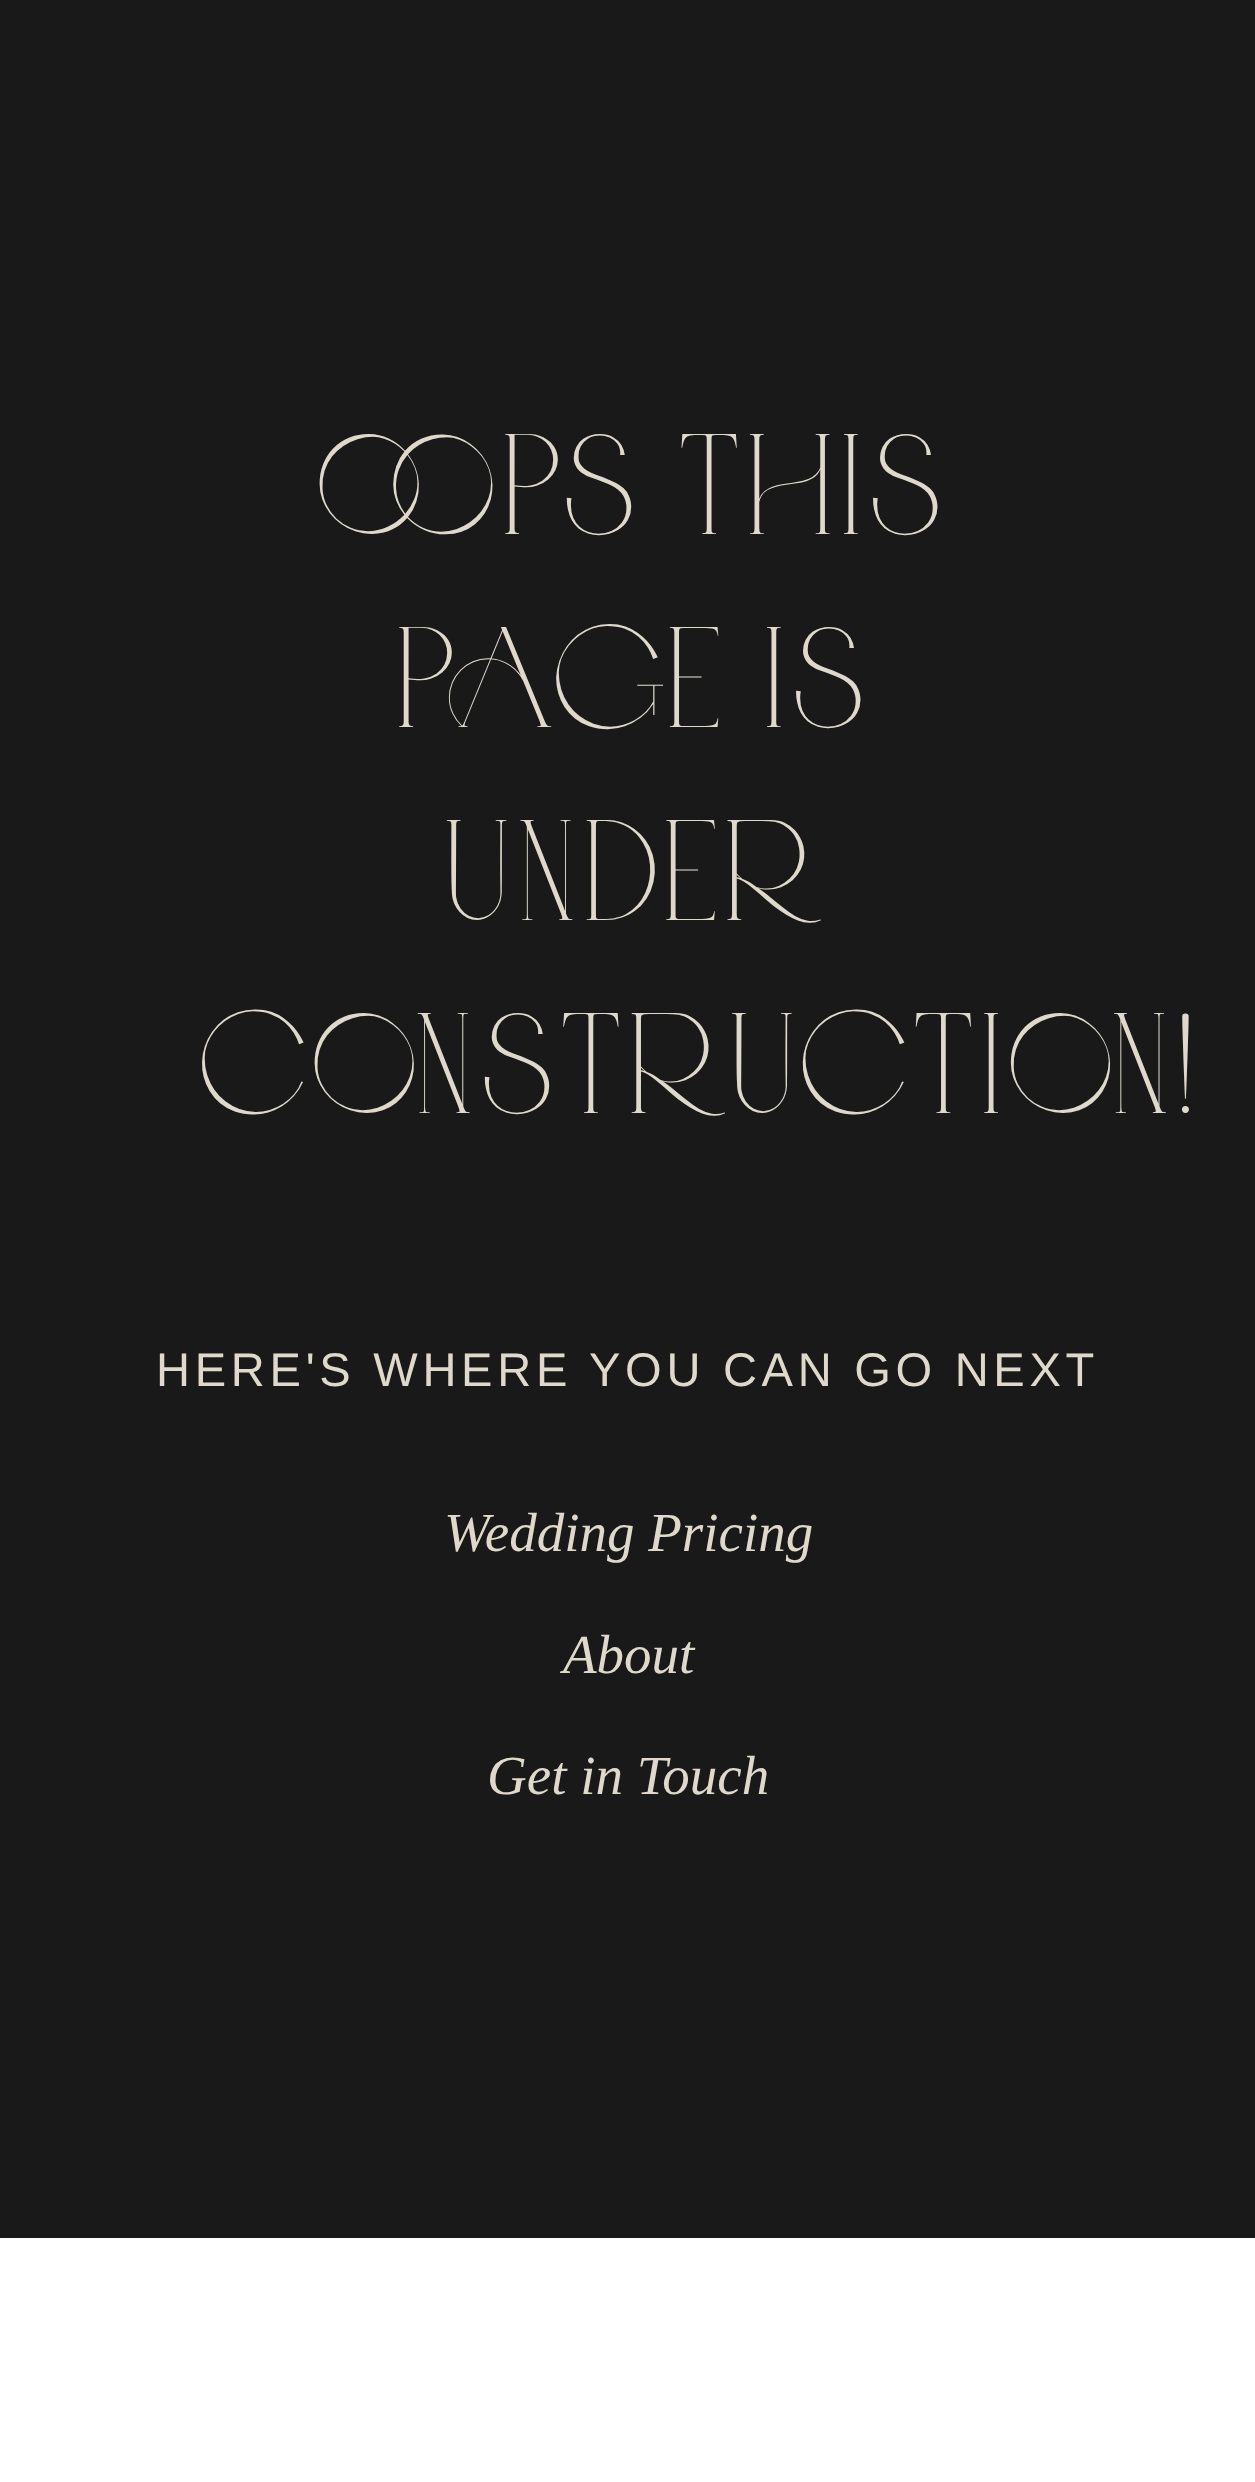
<?xml version="1.0" encoding="UTF-8"?>
<svg xmlns="http://www.w3.org/2000/svg" xmlns:xlink="http://www.w3.org/1999/xlink" width="1255" height="2482">
  <rect width="100%" height="100%" fill="#ffffff" />
  <rect width="1255" height="2238" fill="#19191a" />
  <text x="314" y="534" style="font-family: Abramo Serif; font-size: 161px; fill: #dfd9cc">OOPS THIS</text>
  <text x="392" y="727" style="font-family: Abramo Serif; font-size: 161px; fill: #dfd9cc">PAGE IS</text>
  <text x="440" y="920" style="font-family: Abramo Serif; font-size: 161px; fill: #dfd9cc">UNDER</text>
  <text x="196" y="1113" style="font-family: Abramo Serif; font-size: 161px; fill: #dfd9cc">CONSTRUCTION!</text>
  <text x="156" y="1386" style="font-family: Liberation Sans; font-size: 47.1px; letter-spacing: 4.7px; fill: #dfd9cc">HERE'S WHERE YOU CAN GO NEXT</text>
  <text x="444" y="1551" style="font-family: Liberation Serif; font-size: 55px; font-style: italic; fill: #dfd9cc">Wedding Pricing</text>
  <text x="563" y="1673" style="font-family: Liberation Serif; font-size: 55px; font-style: italic; fill: #dfd9cc">About</text>
  <text x="487" y="1794" style="font-family: Liberation Serif; font-size: 55px; font-style: italic; fill: #dfd9cc">Get in Touch</text>
</svg>
